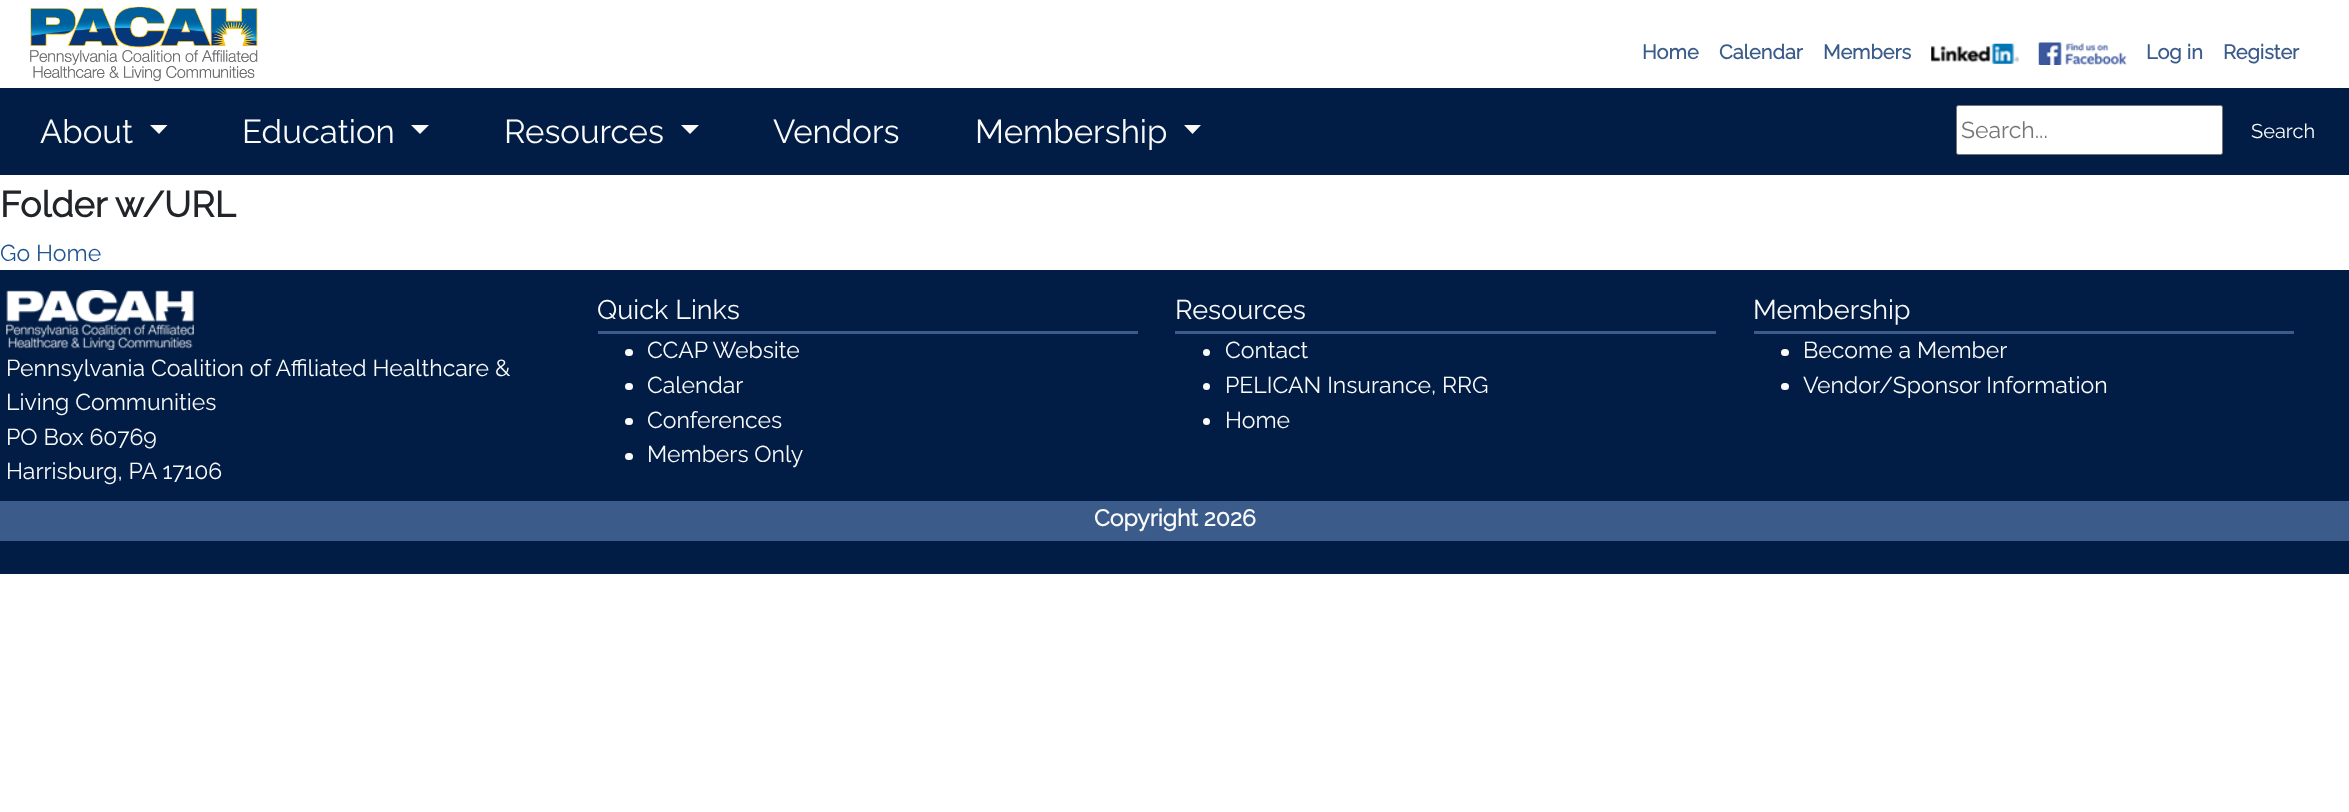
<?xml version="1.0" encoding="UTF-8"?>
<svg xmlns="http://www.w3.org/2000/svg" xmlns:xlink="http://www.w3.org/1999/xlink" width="2349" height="812">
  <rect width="100%" height="100%" fill="#ffffff" />
  <image x="30" y="6" width="228" height="76" xlink:href="image1.png" />
  <image x="1931" y="43" width="88" height="21" xlink:href="image2.png" />
  <image x="2038" y="42" width="89" height="23" xlink:href="image3.png" />
  <rect y="88" width="2349" height="87" fill="#011d45" />
  <path d="M 150 125 h 17.5 l -8.5 9 z" fill="#fafafa" />
  <path d="M 411 125 h 18 l -9 9 z" fill="#fafafa" />
  <path d="M 681 125 h 18 l -9 9 z" fill="#fafafa" />
  <path d="M 1184 125 h 17 l -8.5 9 z" fill="#fafafa" />
  <rect x="1956.5" y="105.5" width="266" height="49" rx="2" fill="#ffffff" stroke="#767676" />
  <rect y="270" width="2349" height="304" fill="#011d45" />
  <rect x="598" y="331" width="540" height="3" fill="#3b5c8a" />
  <rect x="625" y="349" width="8" height="7" rx="3.5" fill="#fafafa" />
  <rect x="625" y="383" width="8" height="7" rx="3.5" fill="#fafafa" />
  <rect x="625" y="418" width="8" height="7" rx="3.5" fill="#fafafa" />
  <rect x="625" y="453" width="8" height="7" rx="3.5" fill="#fafafa" />
  <rect x="1175" y="331" width="541" height="3" fill="#3b5c8a" />
  <circle cx="1206.5" cy="352.5" r="3.5" fill="#fafafa" />
  <circle cx="1206.5" cy="386.5" r="3.5" fill="#fafafa" />
  <circle cx="1206.5" cy="421.5" r="3.5" fill="#fafafa" />
  <rect x="1754" y="331" width="540" height="3" fill="#3b5c8a" />
  <rect x="1781" y="349" width="8" height="7" rx="3.5" fill="#fafafa" />
  <rect x="1781" y="383" width="8" height="7" rx="3.5" fill="#fafafa" />
  <image x="6" y="290" width="188" height="60" xlink:href="image4.png" />
  <rect y="501" width="2349" height="40" fill="#3b5c8a" />
  <text x="1642" y="59" style="font-family: Raleway; font-size: 20px; font-weight: bold; fill: #3b5c8a">Home</text>
  <text x="1719" y="59" style="font-family: Raleway; font-size: 20px; font-weight: bold; fill: #3b5c8a">Calendar</text>
  <text x="1823" y="59" style="font-family: Raleway; font-size: 20px; font-weight: bold; fill: #3b5c8a">Members</text>
  <text x="2146" y="59" style="font-family: Raleway; font-size: 20px; font-weight: bold; fill: #3b5c8a">Log in</text>
  <text x="2223" y="59" style="font-family: Raleway; font-size: 20px; font-weight: bold; fill: #3b5c8a">Register</text>
  <text x="40" y="143" style="font-family: Raleway; font-size: 33px; font-weight: 100; fill: #fafafa">About</text>
  <text x="242" y="143" style="font-family: Raleway; font-size: 33px; font-weight: 100; fill: #fafafa">Education</text>
  <text x="504" y="143" style="font-family: Raleway; font-size: 33px; font-weight: 100; fill: #fafafa">Resources</text>
  <text x="773" y="143" style="font-family: Raleway; font-size: 33px; font-weight: 100; fill: #fafafa">Vendors</text>
  <text x="975" y="143" style="font-family: Raleway; font-size: 33px; font-weight: 100; fill: #fafafa">Membership</text>
  <text x="1961" y="138" style="font-family: Raleway; font-size: 23px; font-weight: 100; fill: #757575">Search...</text>
  <text x="2251" y="138" style="font-family: Raleway; font-size: 20px; font-weight: 100; fill: #fafafa">Search</text>
  <text x="0" y="217" style="font-family: Raleway; font-size: 36px; font-weight: bold; fill: #212529">Folder w/URL</text>
  <text x="0" y="261" style="font-family: Raleway; font-size: 23px; font-weight: 100; fill: #205493">Go Home</text>
  <text x="597" y="319" style="font-family: Raleway; font-size: 27px; font-weight: 100; fill: #fafafa">Quick Links</text>
  <text x="647" y="358" style="font-family: Raleway; font-size: 23px; font-weight: 100; fill: #fafafa">CCAP Website</text>
  <text x="647" y="393" style="font-family: Raleway; font-size: 23px; font-weight: 100; fill: #fafafa">Calendar</text>
  <text x="647" y="428" style="font-family: Raleway; font-size: 23px; font-weight: 100; fill: #fafafa">Conferences</text>
  <text x="647" y="462" style="font-family: Raleway; font-size: 23px; font-weight: 100; fill: #fafafa">Members Only</text>
  <text x="1175" y="319" style="font-family: Raleway; font-size: 27px; font-weight: 100; fill: #fafafa">Resources</text>
  <text x="1225" y="358" style="font-family: Raleway; font-size: 23px; font-weight: 100; fill: #fafafa">Contact</text>
  <text x="1225" y="393" style="font-family: Raleway; font-size: 23px; font-weight: 100; fill: #fafafa">PELICAN Insurance, RRG</text>
  <text x="1225" y="428" style="font-family: Raleway; font-size: 23px; font-weight: 100; fill: #fafafa">Home</text>
  <text x="1753" y="319" style="font-family: Raleway; font-size: 27px; font-weight: 100; fill: #fafafa">Membership</text>
  <text x="1803" y="358" style="font-family: Raleway; font-size: 23px; font-weight: 100; fill: #fafafa">Become a Member</text>
  <text x="1803" y="393" style="font-family: Raleway; font-size: 23px; font-weight: 100; fill: #fafafa">Vendor/Sponsor Information</text>
  <text x="6" y="376" style="font-family: Raleway; font-size: 23px; font-weight: 100; fill: #fafafa">Pennsylvania Coalition of Affiliated Healthcare &amp;</text>
  <text x="6" y="410" style="font-family: Raleway; font-size: 23px; font-weight: 100; fill: #fafafa">Living Communities</text>
  <text x="6" y="445" style="font-family: Raleway; font-size: 23px; font-weight: 100; fill: #fafafa">PO Box 60769</text>
  <text x="6" y="479" style="font-family: Raleway; font-size: 23px; font-weight: 100; fill: #fafafa">Harrisburg, PA 17106</text>
  <text x="1094" y="526" style="font-family: Raleway; font-size: 23px; font-weight: bold; fill: #fafafa">Copyright 2026</text>
</svg>
